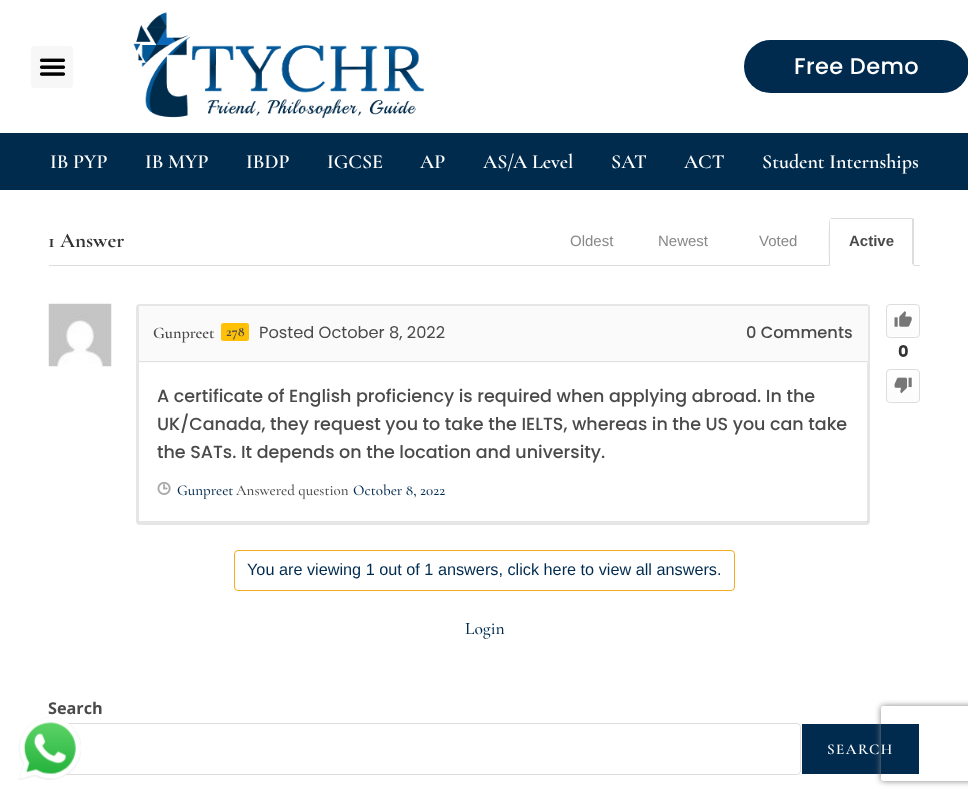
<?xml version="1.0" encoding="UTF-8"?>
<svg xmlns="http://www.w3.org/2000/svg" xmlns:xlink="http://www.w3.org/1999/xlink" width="968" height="798">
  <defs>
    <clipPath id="clip1"><rect x="886" y="304" width="34" height="34" rx="4" /></clipPath>
    <linearGradient id="g1" gradientUnits="userSpaceOnUse" x1="903" y1="305" x2="903" y2="336"><stop offset="0" stop-color="#ffffff" /><stop offset="1" stop-color="#fcfcfc" /></linearGradient>
    <clipPath id="clip2"><rect x="886" y="369" width="34" height="34" rx="4" /></clipPath>
    <linearGradient id="g2" gradientUnits="userSpaceOnUse" x1="903" y1="370" x2="903" y2="401"><stop offset="0" stop-color="#ffffff" /><stop offset="1" stop-color="#fcfcfc" /></linearGradient>
    <clipPath id="clip3"><path d="M 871 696 h 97 v 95 h -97 z m 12.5 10 h 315 c 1.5 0 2.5 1 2.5 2.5 v 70 c 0 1.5 -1 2.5 -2.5 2.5 h -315 c -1.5 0 -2.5 -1 -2.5 -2.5 v -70 c 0 -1.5 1 -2.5 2.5 -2.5 z" clip-rule="evenodd" /></clipPath>
  </defs>
  <rect width="100%" height="100%" fill="#ffffff" />
  <rect x="31" y="46" width="42" height="42" rx="4" fill="#f7f7f7" />
  <image x="39" y="58" width="27" height="18" xlink:href="image1.png" />
  <image x="133" y="12" width="291" height="107" xlink:href="image2.png" />
  <rect x="744" y="40" width="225" height="53" rx="26.5" fill="#002b4f" />
  <rect y="133" width="968" height="57" fill="#012b4d" />
  <rect x="49" y="265" width="871" height="1" fill="#dddddd" />
  <path d="M 831 218 l -1 1 h 82 l 1 -1 h -2 z" fill="#dddddd" />
  <path d="M 914 266 l -2 -2 v -45 l 1 -1 l 1 1 z" fill="#dddddd" />
  <path d="M 914 266 h -85 l 1 -1 h 82 v -1 z" fill="#ffffff" />
  <path d="M 830 219 c -2 1 -1 42 -1 47 l 1 -1 z" fill="#dddddd" />
  <image x="48" y="303" width="64" height="64" xlink:href="image3.png" />
  <rect x="137.5" y="305.5" width="731" height="218" rx="2.5" fill="none" stroke="#e6e6e6" stroke-width="3" />
  <rect x="139" y="306" width="729" height="57" fill="#fafafa" />
  <rect x="139" y="361" width="729" height="1" fill="#e1e1e1" />
  <rect x="221" y="323" width="28" height="18" rx="2.5" fill="#ffc107" />
  <image x="157" y="481" width="14" height="14" xlink:href="image4.png" />
  <rect x="139" y="521" width="729" height="1" fill="#000000" fill-opacity="0.1" />
  <g clip-path="url(#clip1)">
    <rect x="886" y="305" width="34" height="31" fill="url(#g1)" />
  </g>
  <rect x="886.5" y="304.5" width="33" height="33" rx="3.5" fill="none" stroke="#dddddd" />
  <image x="894" y="311" width="18" height="16" xlink:href="image5.png" />
  <g clip-path="url(#clip2)">
    <rect x="886" y="370" width="34" height="31" fill="url(#g2)" />
  </g>
  <rect x="886.5" y="369.5" width="33" height="33" rx="3.5" fill="none" stroke="#dddddd" />
  <image x="894" y="377" width="18" height="17" xlink:href="image6.png" />
  <rect x="234.5" y="550.5" width="500" height="40" rx="3.5" fill="none" stroke="#f4ac20" />
  <rect x="49.5" y="723.5" width="751" height="51" rx="3.5" fill="none" stroke="#dddddd" />
  <rect x="802" y="724" width="117" height="50" fill="#002b4f" />
  <g clip-path="url(#clip3)">
    <rect x="881" y="706" width="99" height="75" rx="2.5" fill="#808080" filter="blur(3px)" />
  </g>
  <image x="18" y="717" width="63" height="63" xlink:href="image7.png" />
  <text x="794" y="74" style="font-family: Poppins; font-size: 22.5px; font-weight: 500; letter-spacing: 0.4px; fill: #ffffff">Free Demo</text>
  <text x="50" y="168" style="font-family: Cormorant Garamond; font-size: 20px; font-weight: 600; fill: #ffffff">IB PYP</text>
  <text x="145" y="168" style="font-family: Cormorant Garamond; font-size: 20px; font-weight: 600; fill: #ffffff">IB MYP</text>
  <text x="246" y="168" style="font-family: Cormorant Garamond; font-size: 20px; font-weight: 600; fill: #ffffff">IBDP</text>
  <text x="327" y="168" style="font-family: Cormorant Garamond; font-size: 20px; font-weight: 600; fill: #ffffff">IGCSE</text>
  <text x="420" y="168" style="font-family: Cormorant Garamond; font-size: 20px; font-weight: 600; fill: #ffffff">AP</text>
  <text x="483" y="168" style="font-family: Cormorant Garamond; font-size: 20px; font-weight: 600; fill: #ffffff">AS/A Level</text>
  <text x="611" y="168" style="font-family: Cormorant Garamond; font-size: 20px; font-weight: 600; fill: #ffffff">SAT</text>
  <text x="684" y="168" style="font-family: Cormorant Garamond; font-size: 20px; font-weight: 600; fill: #ffffff">ACT</text>
  <text x="762" y="168" style="font-family: Cormorant Garamond; font-size: 20px; font-weight: 600; fill: #ffffff">Student Internships</text>
  <text x="48" y="247" style="font-family: Cormorant Garamond; font-size: 21px; font-weight: bold; fill: #333333">1 Answer</text>
  <text x="570" y="246" style="font-family: Liberation Sans; font-size: 15px; fill: #888888">Oldest</text>
  <text x="658" y="246" style="font-family: Liberation Sans; font-size: 15px; fill: #888888">Newest</text>
  <text x="759" y="246" style="font-family: Liberation Sans; font-size: 15px; fill: #888888">Voted</text>
  <text x="849" y="246" style="font-family: Liberation Sans; font-size: 15px; font-weight: bold; fill: #4a4a4a">Active</text>
  <text x="153" y="338" style="font-family: Cormorant Garamond; font-size: 16.25px; font-weight: 600; fill: #4a4a4a">Gunpreet</text>
  <text x="226" y="336" style="font-family: Cormorant Garamond; font-size: 14px; font-weight: bold; fill: #4a4a4a">278</text>
  <text x="259" y="338" style="font-family: Poppins; font-size: 16.25px; fill: #4a4a4a">Posted October 8, 2022</text>
  <text x="746" y="338" style="font-family: Poppins; font-size: 16.25px; font-weight: 500; fill: #4a4a4a">0 Comments</text>
  <text x="157" y="402" style="font-family: Poppins; font-size: 17.5px; font-weight: 500; fill: #4a4a4a">A certificate of English proficiency is required when applying abroad. In the</text>
  <text x="157" y="430" style="font-family: Poppins; font-size: 17.5px; font-weight: 500; fill: #4a4a4a">UK/Canada, they request you to take the IELTS, whereas in the US you can take</text>
  <text x="157" y="458" style="font-family: Poppins; font-size: 17.5px; font-weight: 500; fill: #4a4a4a">the SATs. It depends on the location and university.</text>
  <text x="177" y="495" style="font-family: Cormorant Garamond; font-size: 15px; font-weight: 500; fill: #002b4f">Gunpreet</text>
  <text x="236" y="495" style="font-family: Cormorant Garamond; font-size: 15px; font-weight: 500; fill: #4a4a4a">Answered question</text>
  <text x="353" y="495" style="font-family: Cormorant Garamond; font-size: 15px; font-weight: 500; fill: #002b4f">October 8, 2022</text>
  <text x="898" y="357" style="font-family: Poppins; font-size: 16.25px; font-weight: bold; fill: #333333">0</text>
  <text x="247" y="575" style="font-family: Liberation Sans; font-size: 16.25px; fill: #002b4f">You are viewing 1 out of 1 answers, click here to view all answers.</text>
  <text x="465" y="634" style="font-family: Cormorant Garamond; font-size: 17.5px; font-weight: 500; fill: #002b4f">Login</text>
  <text x="48" y="714" style="font-family: Open Sans; font-size: 16.25px; font-weight: bold; fill: #4a4a4a">Search</text>
  <text x="827" y="754" style="font-family: Cormorant Garamond; font-size: 15px; font-weight: 600; letter-spacing: 1.5px; fill: #ffffff">SEARCH</text>
</svg>
